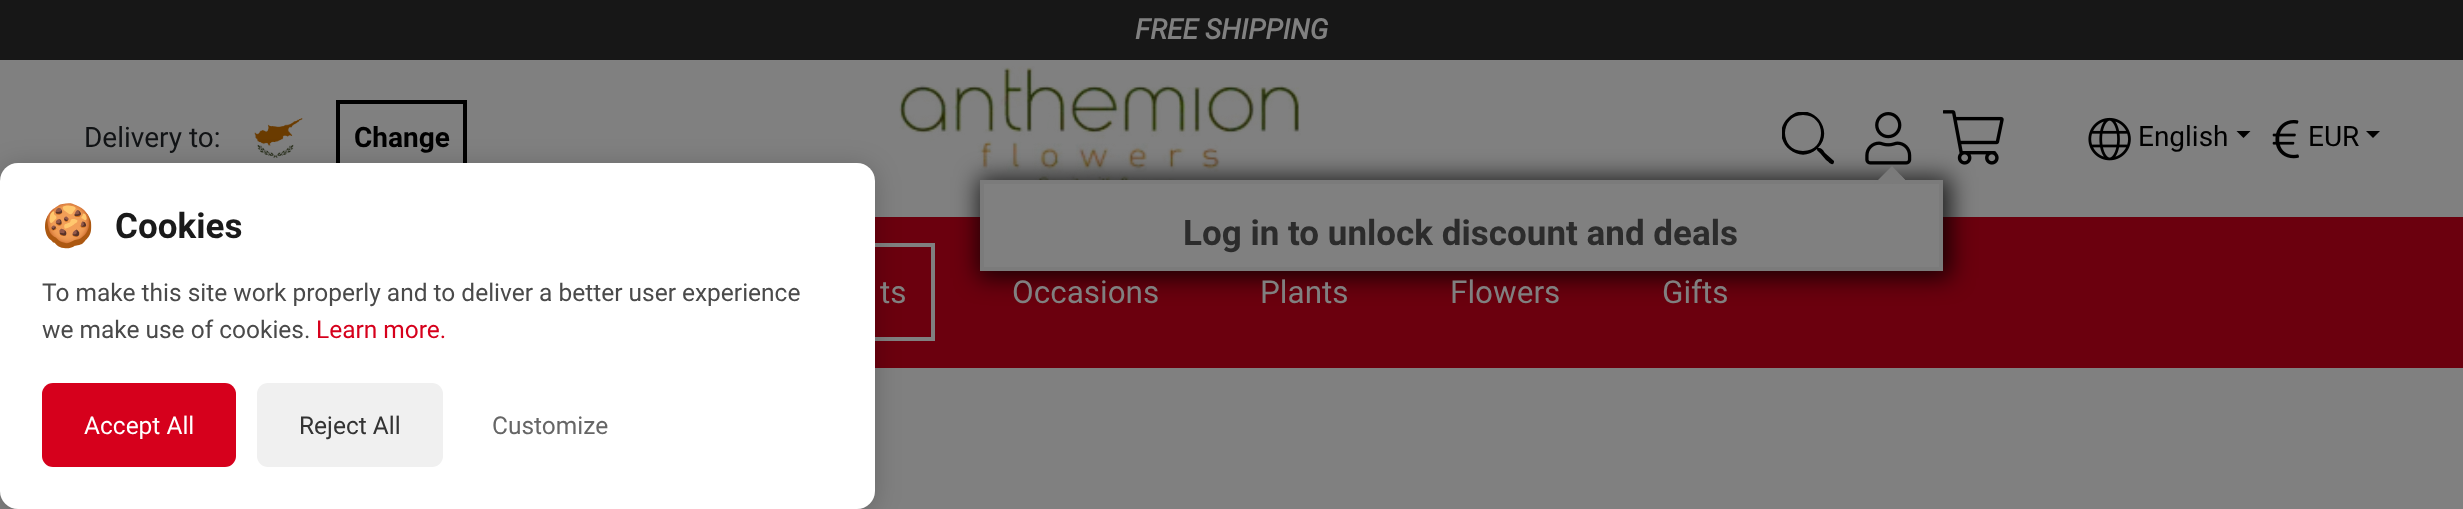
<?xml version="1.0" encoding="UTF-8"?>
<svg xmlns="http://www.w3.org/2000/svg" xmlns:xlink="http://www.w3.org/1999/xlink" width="2463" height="509">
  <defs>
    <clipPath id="clip1"><rect x="1782" y="112" width="52" height="53" /></clipPath>
  </defs>
  <rect width="100%" height="100%" fill="#808080" />
  <rect width="2463" height="60" fill="#171717" />
  <image x="254" y="118" width="49" height="40" xlink:href="image1.png" />
  <rect x="338" y="102" width="127" height="73" fill="none" stroke="#000000" stroke-width="4" />
  <image x="899" y="66" width="402" height="114" xlink:href="image2.png" />
  <g clip-path="url(#clip1)">
    <path d="M 1834 161 l -9 -8 c -2 -3 -3 -5 -7 -5 c 19 -20 -10 -50 -30 -30 c -20 20 9 49 29 31 c 0 2 1 2 3 4 l 6 7 c 1 0 7 8 8 2 z m -31 -10 c -24 0 -24 -36 0 -36 c 24 0 24 36 0 36 z" fill="#000000" />
  </g>
  <image x="1943" y="110" width="61" height="55" xlink:href="image3.png" />
  <image x="2088" y="117" width="43" height="44" xlink:href="image4.png" />
  <path d="M 2236.5 131 h 14 l -7 7 z" fill="#000000" />
  <image x="2272" y="120" width="27" height="39" xlink:href="image5.png" />
  <path d="M 2366 131 h 14 l -7 7 z" fill="#000000" />
  <image x="1865" y="112" width="47" height="53" xlink:href="image6.png" />
  <rect x="875" y="217" width="1588" height="151" fill="#6b000e" />
  <rect x="978" y="177" width="973" height="101" fill="#000000" fill-opacity="0.75" filter="blur(11.5px)" />
  <rect x="982" y="182" width="959" height="87" fill="#808080" stroke="#7b7b7b" stroke-width="4" />
  <path d="M 1909 184 h -35 l 18 -18 z" fill="#7b7b7b" />
  <path d="M 1909 184 h -17 l 8.5 -9 z" fill="#7b7b7b" />
  <rect x="713" y="245" width="220" height="94" fill="none" stroke="#808080" stroke-width="4" />
  <rect y="166" width="875" height="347" rx="18" fill="#000000" fill-opacity="0.2" filter="blur(13px)" />
  <rect y="163" width="875" height="346" rx="18" fill="#ffffff" />
  <rect x="42" y="383" width="194" height="84" rx="11" fill="#d6001c" />
  <rect x="257" y="383" width="186" height="84" rx="11" fill="#f0f0f0" />
  <text x="1135" y="39" style="font-family: Roboto; font-size: 28px; font-weight: bold; font-style: italic; fill: #808080">FREE SHIPPING</text>
  <text x="84" y="147" style="font-family: Roboto; font-size: 28px; fill: #111315">Delivery to:</text>
  <text x="354" y="147" style="font-family: Roboto; font-size: 28px; font-weight: bold; fill: #000000">Change</text>
  <text x="2138" y="146" style="font-family: Roboto; font-size: 28px; fill: #000000">English</text>
  <text x="2308" y="146" style="font-family: Roboto; font-size: 28px; fill: #000000">EUR</text>
  <text x="1183" y="245" style="font-family: Roboto; font-size: 35px; font-weight: bold; fill: #2c2c2c">Log in to unlock discount and deals</text>
  <text x="880" y="303" style="font-family: Roboto; font-size: 31.5px; fill: #808080">ts</text>
  <text x="1012" y="303" style="font-family: Roboto; font-size: 31.5px; fill: #808080">Occasions</text>
  <text x="1260" y="303" style="font-family: Roboto; font-size: 31.5px; fill: #808080">Plants</text>
  <text x="1450" y="303" style="font-family: Roboto; font-size: 31.5px; fill: #808080">Flowers</text>
  <text x="1662" y="303" style="font-family: Roboto; font-size: 31.5px; fill: #808080">Gifts</text>
  <text x="42" y="240" style="font-family: Noto Color Emoji; font-size: 42px; fill: #212529">🍪</text>
  <text x="115" y="238" style="font-family: Roboto; font-size: 35px; font-weight: bold; fill: #1a1a1a">Cookies</text>
  <text x="42" y="301" style="font-family: Roboto; font-size: 24.5px; fill: #4a4a4a">To make this site work properly and to deliver a better user experience</text>
  <text x="42" y="338" style="font-family: Roboto; font-size: 24.5px; fill: #4a4a4a">we make use of cookies.</text>
  <text x="316" y="338" style="font-family: Roboto; font-size: 24.5px; fill: #d6001c">Learn more.</text>
  <text x="84" y="434" style="font-family: Roboto; font-size: 24.5px; fill: #ffffff">Accept All</text>
  <text x="299" y="434" style="font-family: Roboto; font-size: 24.5px; fill: #333333">Reject All</text>
  <text x="492" y="434" style="font-family: Roboto; font-size: 24.5px; fill: #666666">Customize</text>
</svg>
